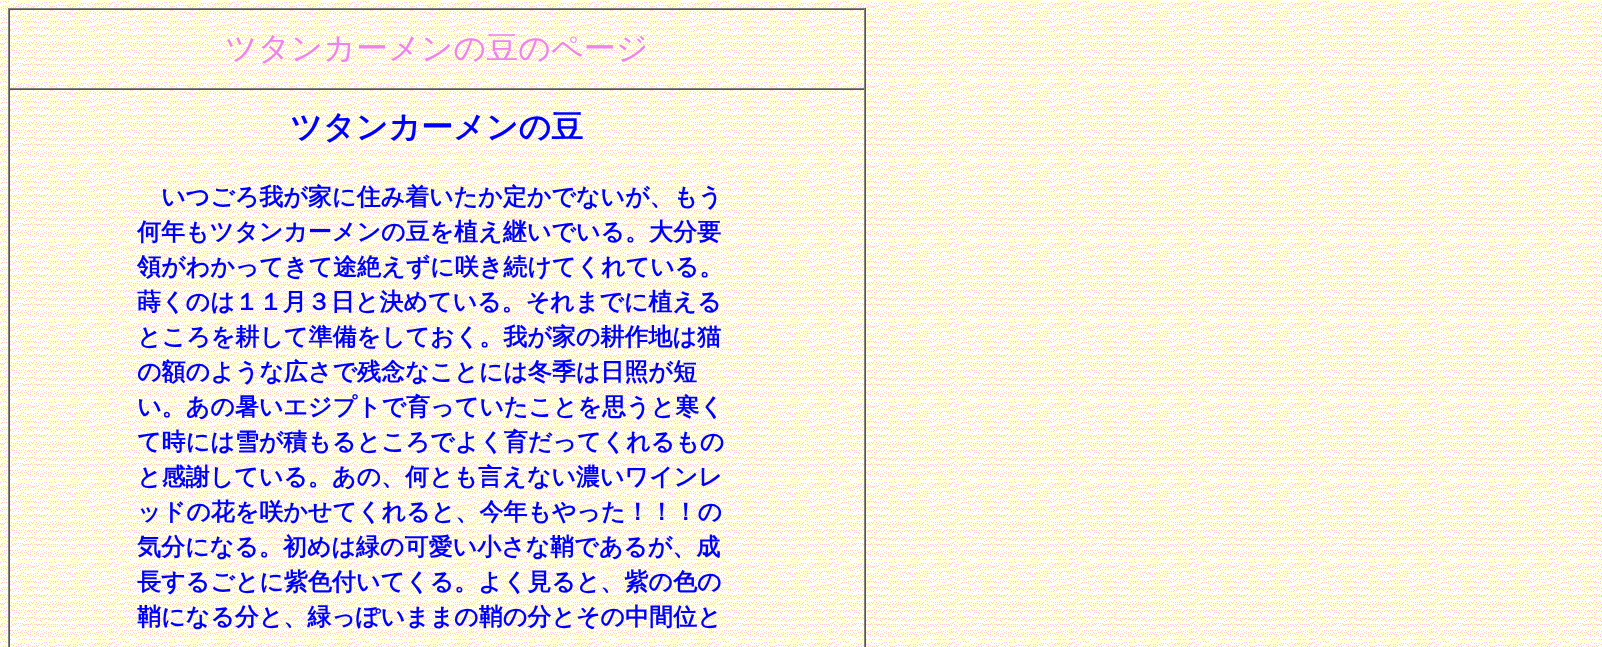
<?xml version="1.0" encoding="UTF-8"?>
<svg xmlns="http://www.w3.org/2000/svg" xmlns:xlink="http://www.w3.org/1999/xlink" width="1602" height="647">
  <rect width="100%" height="100%" fill="#ffffff" />
  <image x="0" y="0" width="1602" height="647" xlink:href="image1.png" />
  <rect x="8" y="8" width="858" height="1" fill="#808080" />
  <rect x="865" y="8" width="1" height="639" fill="#555555" />
  <rect x="8" y="8" width="1" height="639" fill="#808080" />
  <rect x="9" y="9" width="856" height="1" fill="#555555" />
  <rect x="864" y="9" width="1" height="80" fill="#808080" />
  <rect x="9" y="88" width="856" height="1" fill="#808080" />
  <rect x="9" y="9" width="1" height="80" fill="#555555" />
  <rect x="9" y="89" width="856" height="1" fill="#555555" />
  <rect x="864" y="89" width="1" height="558" fill="#808080" />
  <rect x="9" y="89" width="1" height="558" fill="#555555" />
  <text x="225" y="59" style="font-family: WenQuanYi Zen Hei; font-size: 32px; font-weight: 500; fill: #ee82ee">ツタンカーメンの豆のページ</text>
  <text x="290" y="138" style="font-family: WenQuanYi Zen Hei; font-size: 32px; font-weight: bold; fill: #0000ff">ツタンカーメンの豆</text>
  <text x="161" y="205" style="font-family: WenQuanYi Zen Hei; font-size: 24px; font-weight: bold; fill: #0000ff">いつごろ我が家に住み着いたか定かでないが、もう</text>
  <text x="137" y="240" style="font-family: WenQuanYi Zen Hei; font-size: 24px; font-weight: bold; fill: #0000ff">何年もツタンカーメンの豆を植え継いでいる。大分要</text>
  <text x="137" y="275" style="font-family: WenQuanYi Zen Hei; font-size: 24px; font-weight: bold; fill: #0000ff">領がわかってきて途絶えずに咲き続けてくれている。</text>
  <text x="137" y="310" style="font-family: WenQuanYi Zen Hei; font-size: 24px; font-weight: bold; fill: #0000ff">蒔くのは１１月３日と決めている。それまでに植える</text>
  <text x="137" y="345" style="font-family: WenQuanYi Zen Hei; font-size: 24px; font-weight: bold; fill: #0000ff">ところを耕して準備をしておく。我が家の耕作地は猫</text>
  <text x="137" y="380" style="font-family: WenQuanYi Zen Hei; font-size: 24px; font-weight: bold; fill: #0000ff">の額のような広さで残念なことには冬季は日照が短</text>
  <text x="137" y="415" style="font-family: WenQuanYi Zen Hei; font-size: 24px; font-weight: bold; fill: #0000ff">い。あの暑いエジプトで育っていたことを思うと寒く</text>
  <text x="137" y="450" style="font-family: WenQuanYi Zen Hei; font-size: 24px; font-weight: bold; fill: #0000ff">て時には雪が積もるところでよく育だってくれるもの</text>
  <text x="137" y="485" style="font-family: WenQuanYi Zen Hei; font-size: 24px; font-weight: bold; fill: #0000ff">と感謝している。あの、何とも言えない濃いワインレ</text>
  <text x="137" y="520" style="font-family: WenQuanYi Zen Hei; font-size: 24px; font-weight: bold; fill: #0000ff">ッドの花を咲かせてくれると、今年もやった！！！の</text>
  <text x="137" y="555" style="font-family: WenQuanYi Zen Hei; font-size: 24px; font-weight: bold; fill: #0000ff">気分になる。初めは緑の可愛い小さな鞘であるが、成</text>
  <text x="137" y="590" style="font-family: WenQuanYi Zen Hei; font-size: 24px; font-weight: bold; fill: #0000ff">長するごとに紫色付いてくる。よく見ると、紫の色の</text>
  <text x="137" y="625" style="font-family: WenQuanYi Zen Hei; font-size: 24px; font-weight: bold; fill: #0000ff">鞘になる分と、緑っぽいままの鞘の分とその中間位と</text>
</svg>
